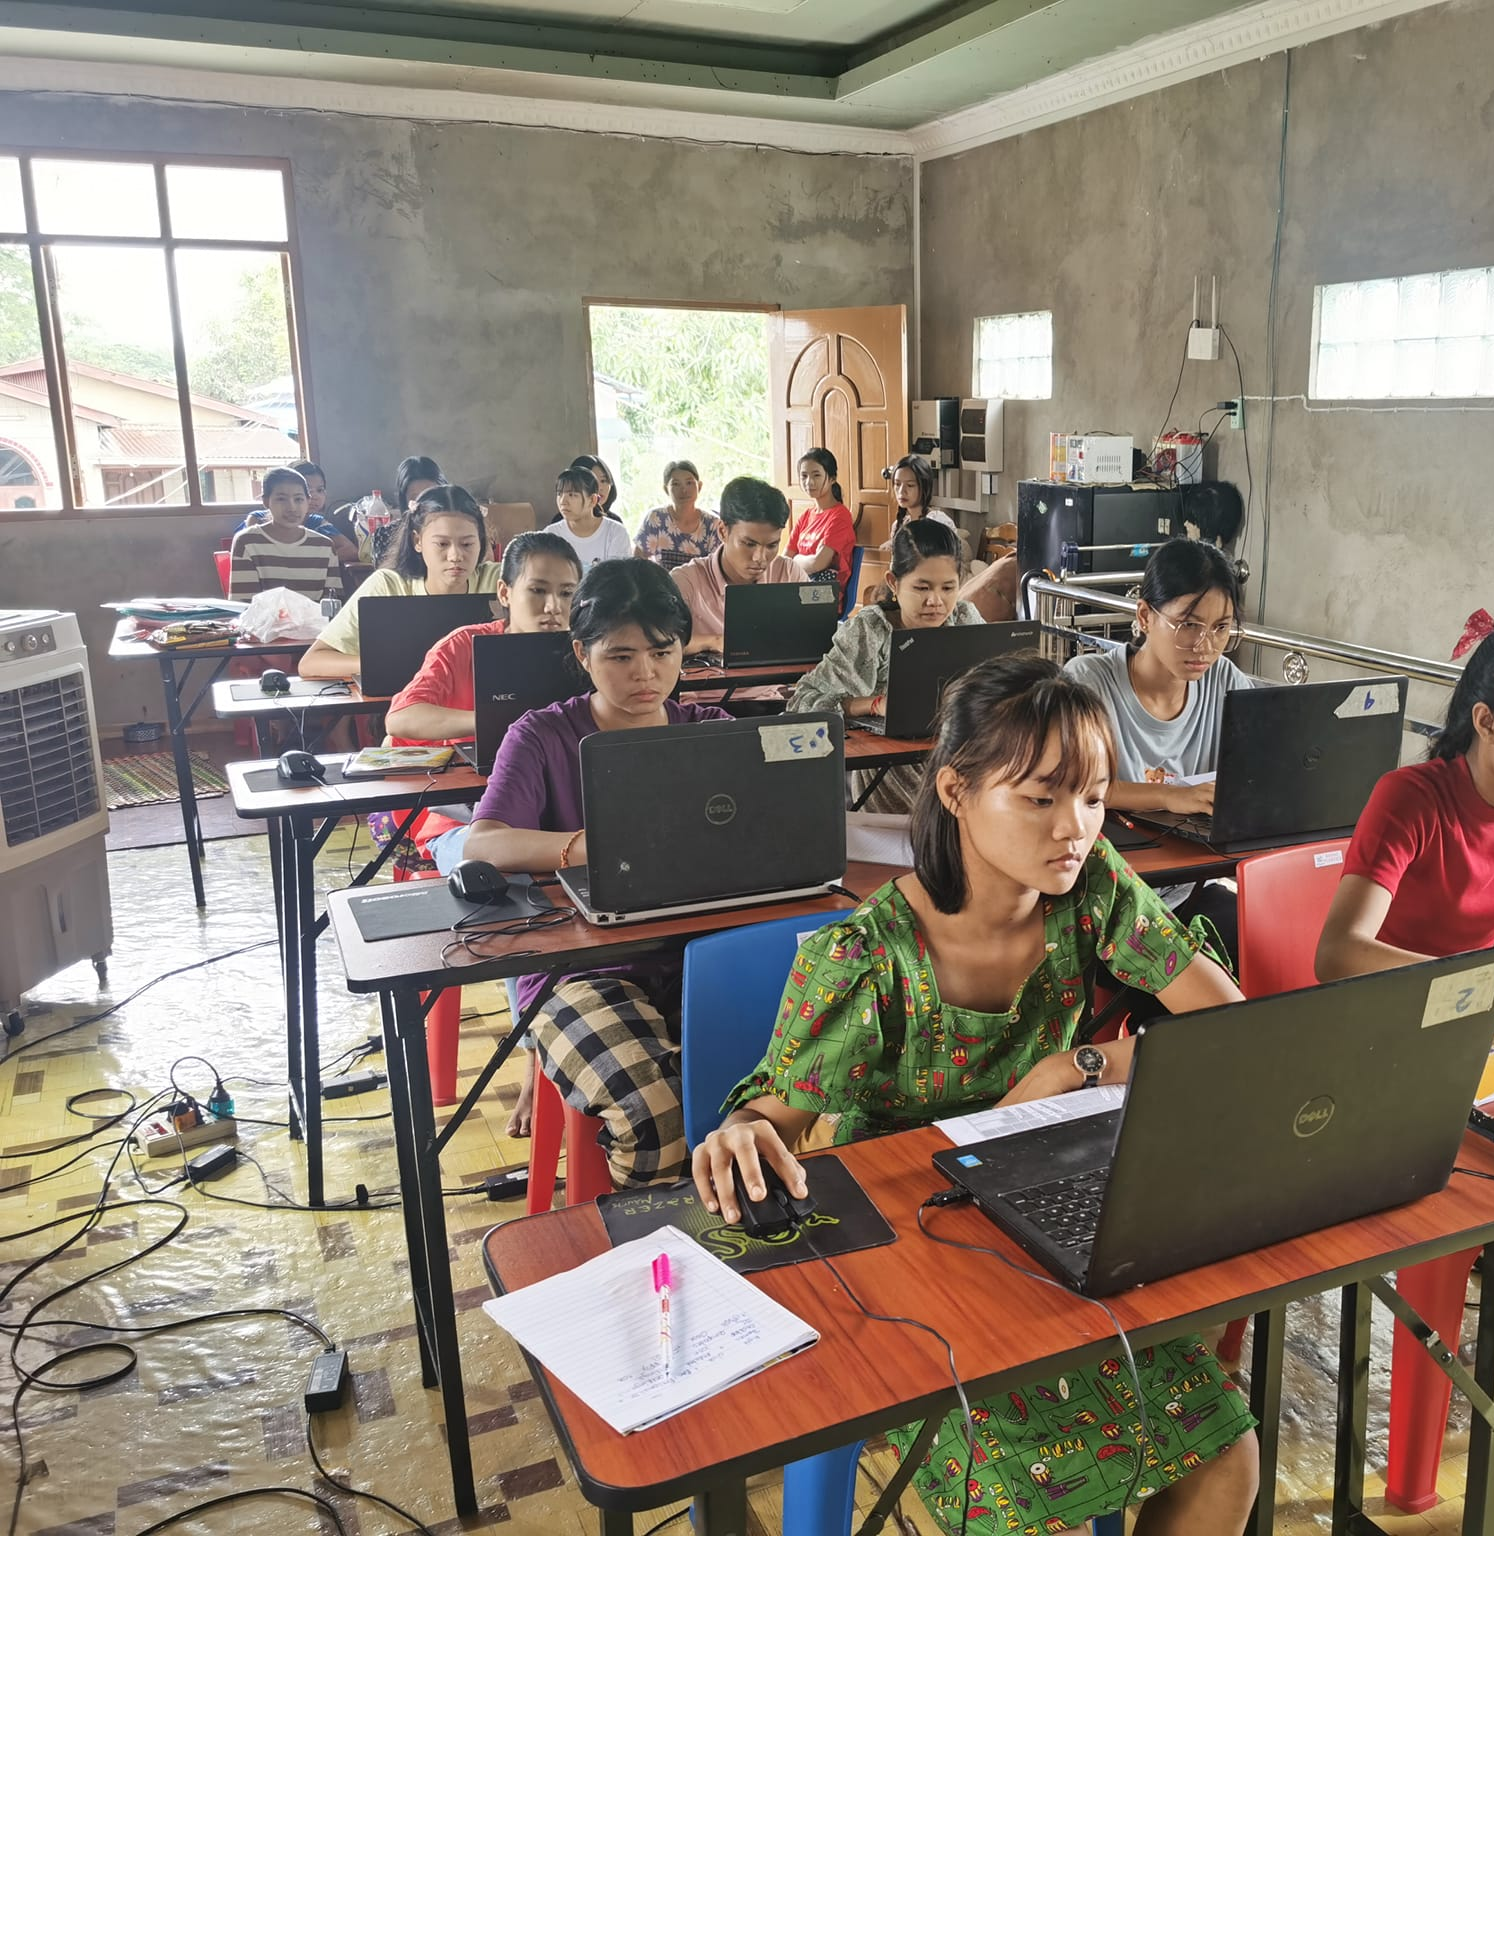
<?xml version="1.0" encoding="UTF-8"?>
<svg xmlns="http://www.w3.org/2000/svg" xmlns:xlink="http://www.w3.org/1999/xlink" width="1494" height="1954">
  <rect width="100%" height="100%" fill="#ffffff" />
  <image x="0" y="0" width="1494" height="1536" xlink:href="image1.png" />
</svg>
